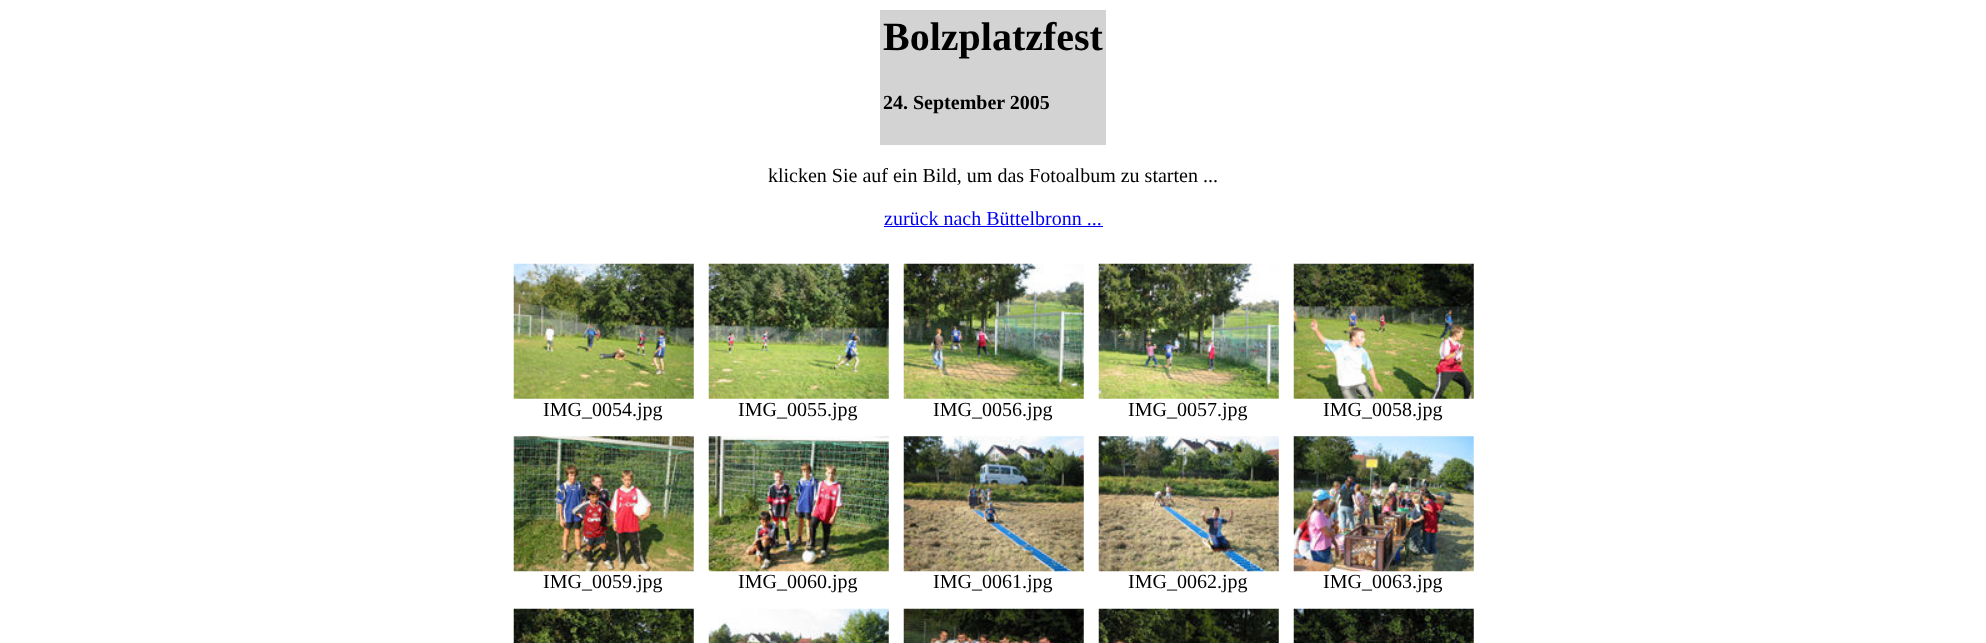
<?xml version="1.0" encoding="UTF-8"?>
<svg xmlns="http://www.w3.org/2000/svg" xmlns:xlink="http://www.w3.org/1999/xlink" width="1986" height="643">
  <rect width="100%" height="100%" fill="#ffffff" />
  <rect x="880" y="10" width="226" height="135" fill="#d3d3d3" />
  <rect x="884" y="226" width="219" height="1" fill="#0000ee" />
  <image x="513" y="263" width="181" height="136" xlink:href="image1.png" />
  <image x="708" y="263" width="181" height="136" xlink:href="image2.png" />
  <image x="903" y="263" width="181" height="136" xlink:href="image3.png" />
  <image x="1098" y="263" width="181" height="136" xlink:href="image4.png" />
  <image x="1293" y="263" width="181" height="136" xlink:href="image5.png" />
  <image x="513" y="436" width="181" height="136" xlink:href="image6.png" />
  <image x="708" y="436" width="181" height="136" xlink:href="image7.png" />
  <image x="903" y="436" width="181" height="136" xlink:href="image8.png" />
  <image x="1098" y="436" width="181" height="136" xlink:href="image9.png" />
  <image x="1293" y="436" width="181" height="136" xlink:href="image10.png" />
  <image x="513" y="608" width="181" height="35" xlink:href="image11.png" />
  <image x="708" y="608" width="181" height="35" xlink:href="image12.png" />
  <image x="903" y="608" width="181" height="35" xlink:href="image13.png" />
  <image x="1098" y="608" width="181" height="35" xlink:href="image14.png" />
  <image x="1293" y="608" width="181" height="35" xlink:href="image15.png" />
  <text x="883" y="50" style="font-family: Liberation Serif; font-size: 40px; font-weight: bold; fill: #000000">Bolzplatzfest</text>
  <text x="883" y="109" style="font-family: Liberation Serif; font-size: 20px; font-weight: bold; fill: #000000">24. September 2005</text>
  <text x="768" y="182" style="font-family: Liberation Serif; font-size: 20px; fill: #000000">klicken Sie auf ein Bild, um das Fotoalbum zu starten ...</text>
  <text x="884" y="225" style="font-family: Liberation Serif; font-size: 20px; fill: #0000ee">zurück nach Büttelbronn ...</text>
  <text x="543" y="416" style="font-family: Liberation Serif; font-size: 20px; fill: #000000">IMG_0054.jpg</text>
  <text x="738" y="416" style="font-family: Liberation Serif; font-size: 20px; fill: #000000">IMG_0055.jpg</text>
  <text x="933" y="416" style="font-family: Liberation Serif; font-size: 20px; fill: #000000">IMG_0056.jpg</text>
  <text x="1128" y="416" style="font-family: Liberation Serif; font-size: 20px; fill: #000000">IMG_0057.jpg</text>
  <text x="1323" y="416" style="font-family: Liberation Serif; font-size: 20px; fill: #000000">IMG_0058.jpg</text>
  <text x="543" y="588" style="font-family: Liberation Serif; font-size: 20px; fill: #000000">IMG_0059.jpg</text>
  <text x="738" y="588" style="font-family: Liberation Serif; font-size: 20px; fill: #000000">IMG_0060.jpg</text>
  <text x="933" y="588" style="font-family: Liberation Serif; font-size: 20px; fill: #000000">IMG_0061.jpg</text>
  <text x="1128" y="588" style="font-family: Liberation Serif; font-size: 20px; fill: #000000">IMG_0062.jpg</text>
  <text x="1323" y="588" style="font-family: Liberation Serif; font-size: 20px; fill: #000000">IMG_0063.jpg</text>
</svg>
